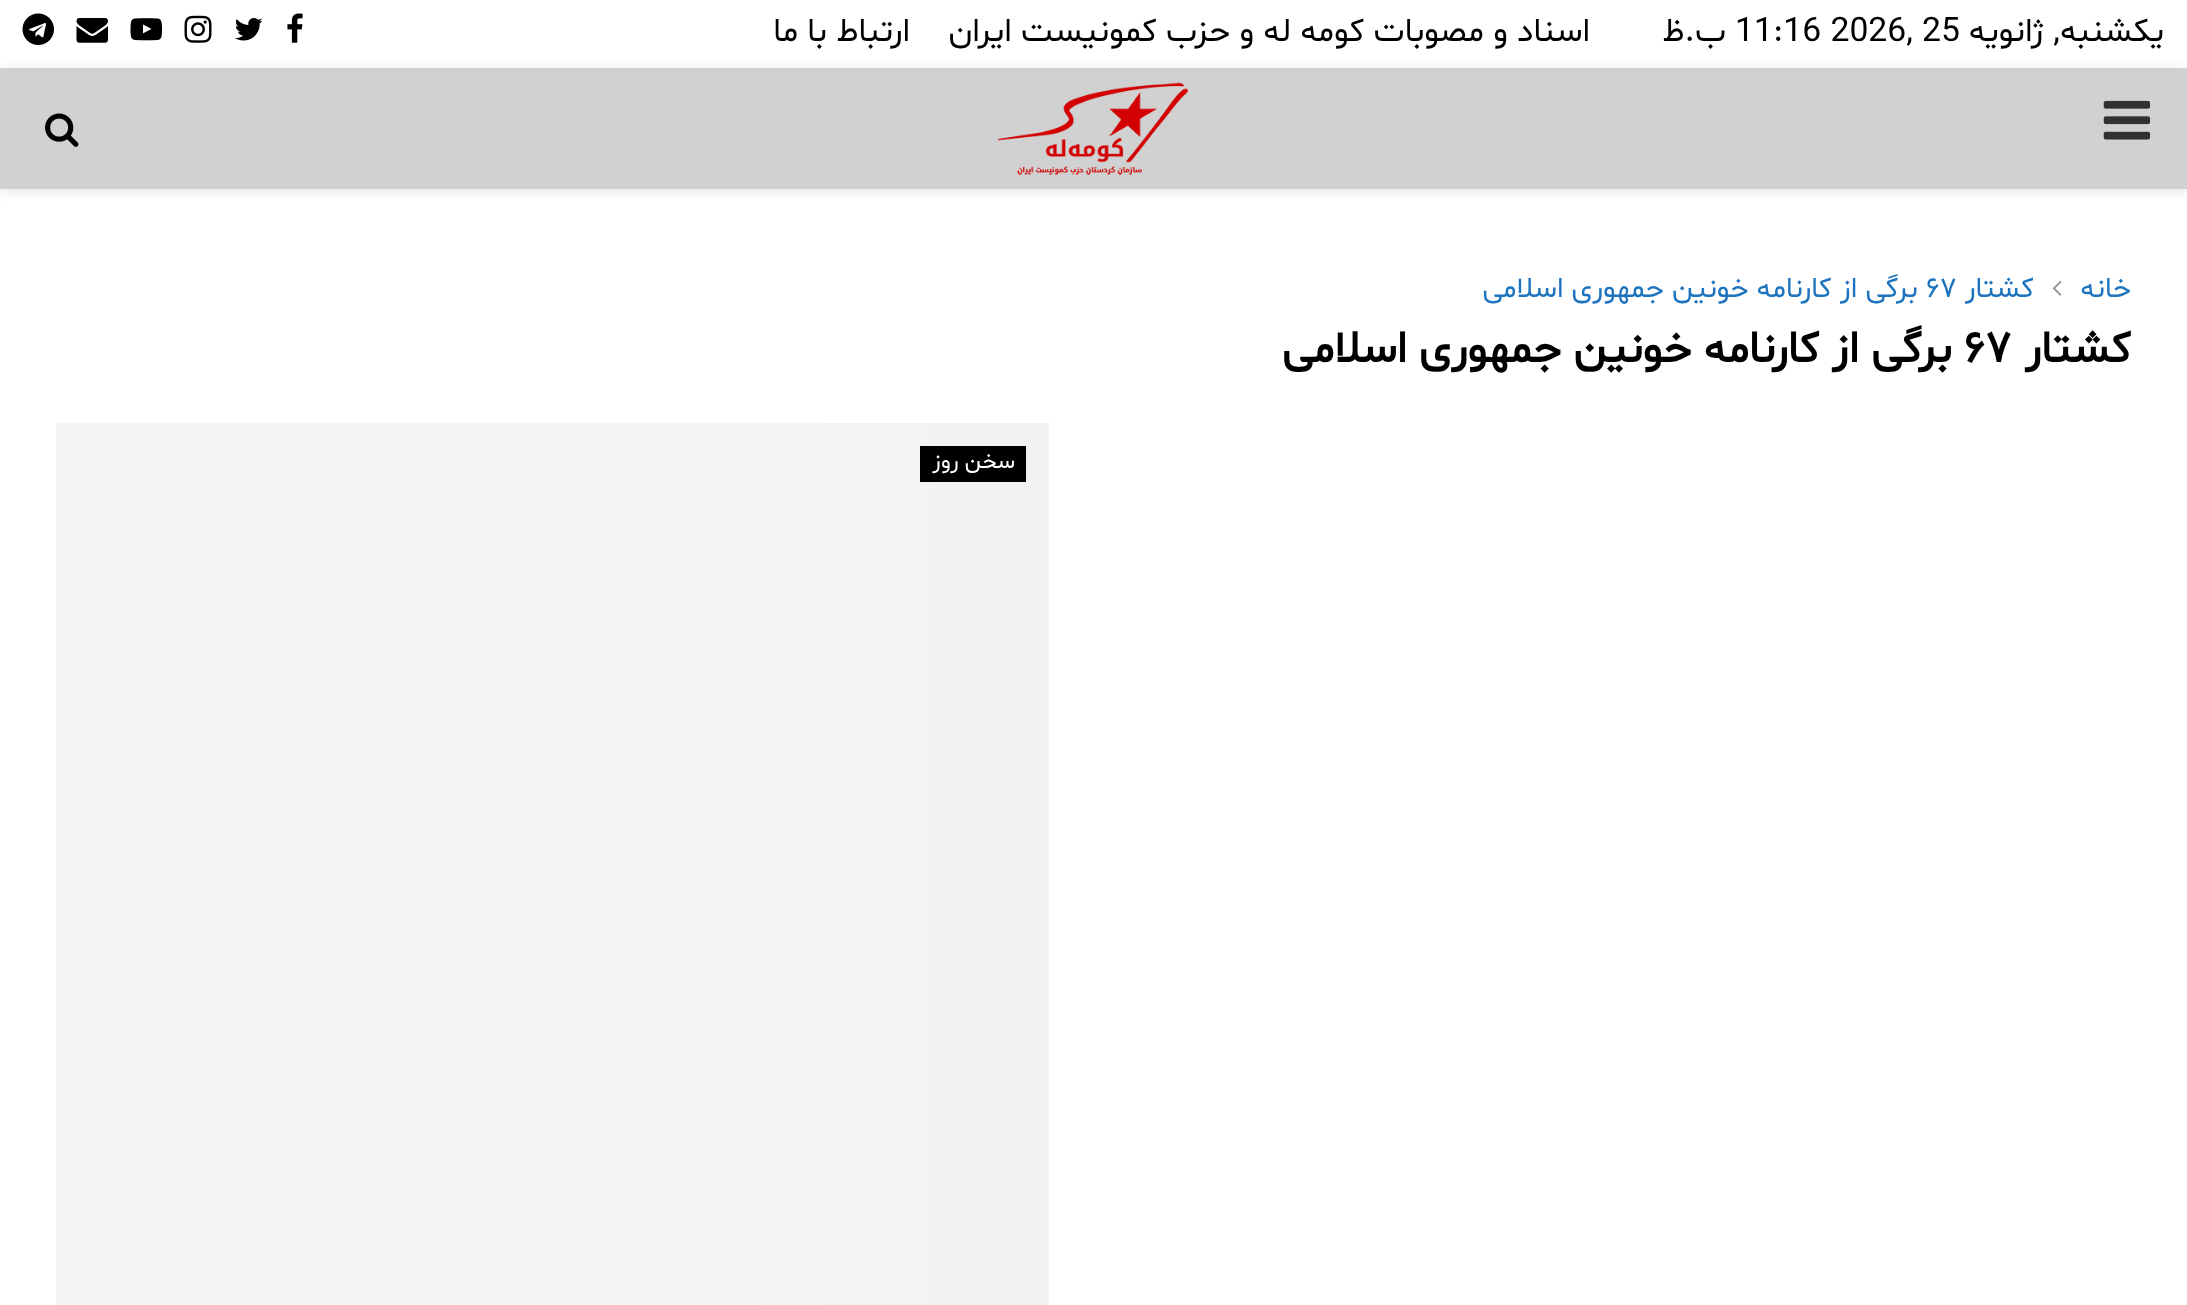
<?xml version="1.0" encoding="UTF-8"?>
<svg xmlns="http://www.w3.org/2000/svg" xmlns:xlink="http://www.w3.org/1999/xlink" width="2187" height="1305">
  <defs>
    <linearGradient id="g1" gradientUnits="userSpaceOnUse" x1="1565" y1="919" x2="-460" y2="919"><stop offset="0" stop-color="#f5f5f5" /><stop offset="0.15" stop-color="#efefef" /><stop offset="0.4" stop-color="#f5f5f5" /><stop offset="1" stop-color="#f5f5f5" /></linearGradient>
  </defs>
  <rect width="100%" height="100%" fill="#ffffff" />
  <image x="287" y="13" width="16" height="30" xlink:href="image1.png" />
  <image x="235" y="18" width="28" height="23" xlink:href="image2.png" />
  <image x="184" y="15" width="28" height="28" xlink:href="image3.png" />
  <image x="130" y="18" width="32" height="23" xlink:href="image4.png" />
  <image x="76" y="18" width="32" height="25" xlink:href="image5.png" />
  <image x="22" y="13" width="32" height="32" xlink:href="image6.png" />
  <rect y="70" width="2187" height="121" fill="#bebebe" fill-opacity="0.46" filter="blur(5.5px)" />
  <rect y="68" width="2187" height="121" fill="#d1d1d1" />
  <image x="2103" y="100" width="48" height="40" xlink:href="image7.png" />
  <image x="998" y="82" width="190" height="93" xlink:href="image8.png" />
  <image x="45" y="113" width="34" height="34" xlink:href="image9.png" />
  <image x="2052" y="280" width="10" height="16" xlink:href="image10.png" />
  <rect x="56" y="423" width="993" height="882" fill="url(#g1)" />
  <rect x="920" y="446" width="106" height="36" fill="#000000" />
  <text x="2164" y="41" style="font-family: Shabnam; font-size: 33.75px; direction: rtl; fill: #000000">یکشنبه, ژانویه</text>
  <text x="1735" y="41" style="font-family: Shabnam; font-size: 33.75px; fill: #000000">11:16 2026, 25</text>
  <text x="1726" y="41" style="font-family: Shabnam; font-size: 33.75px; direction: rtl; fill: #000000">ب.ظ</text>
  <text x="1590" y="41" style="font-family: Shabnam; font-size: 33.75px; direction: rtl; fill: #000000">اسناد و مصوبات کومه له و حزب کمونیست ایران</text>
  <text x="910" y="41" style="font-family: Shabnam; font-size: 33.75px; direction: rtl; fill: #000000">ارتباط با ما</text>
  <text x="2131" y="297" style="font-family: Shabnam; font-size: 29.25px; direction: rtl; fill: #1e73be">خانه</text>
  <text x="2034" y="297" style="font-family: Shabnam; font-size: 29.25px; direction: rtl; fill: #1e73be">کشتار</text>
  <text x="1926" y="297" style="font-family: Shabnam; font-size: 29.25px; fill: #1e73be">۶۷</text>
  <text x="1918" y="297" style="font-family: Shabnam; font-size: 29.25px; direction: rtl; fill: #1e73be">برگی از کارنامه خونین جمهوری اسلامی</text>
  <text x="2131" y="362" style="font-family: Shabnam; font-size: 45px; font-weight: bold; direction: rtl; fill: #000000">کشتار</text>
  <text x="1964" y="362" style="font-family: Shabnam; font-size: 45px; font-weight: bold; fill: #000000">۶۷</text>
  <text x="1952" y="362" style="font-family: Shabnam; font-size: 45px; font-weight: bold; direction: rtl; fill: #000000">برگی از کارنامه خونین جمهوری اسلامی</text>
  <text x="1015" y="468" style="font-family: Shabnam; font-size: 22.5px; direction: rtl; fill: #ffffff">سخن روز</text>
</svg>
